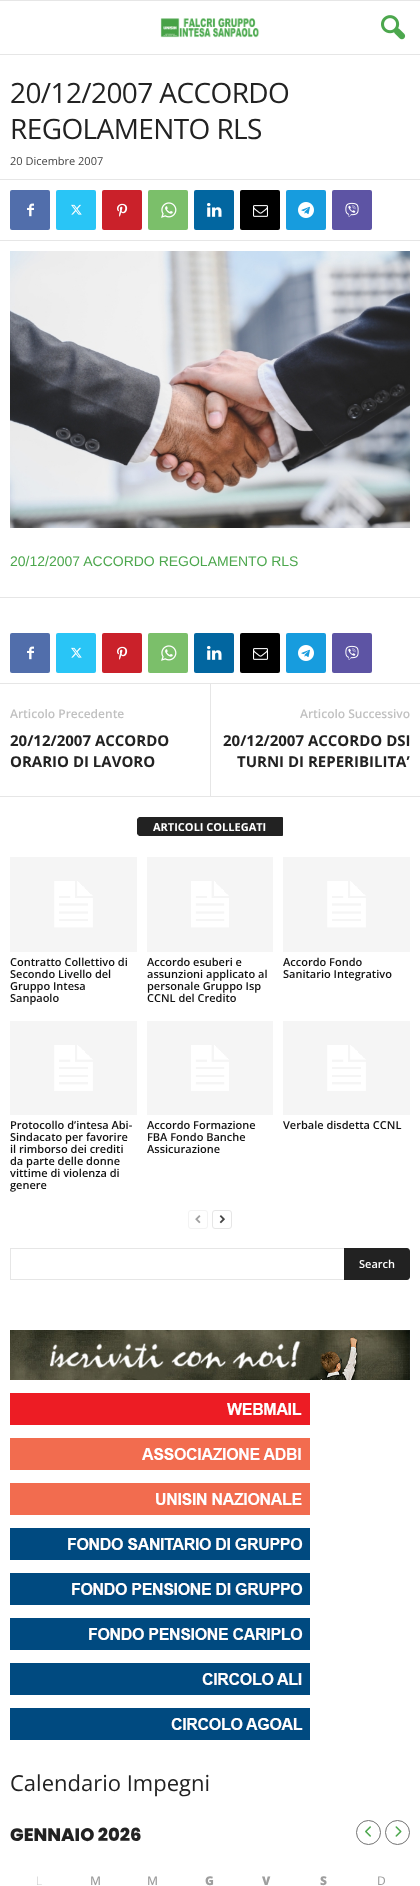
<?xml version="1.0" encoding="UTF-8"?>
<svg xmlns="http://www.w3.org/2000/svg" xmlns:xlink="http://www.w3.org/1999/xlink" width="420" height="1886">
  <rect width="100%" height="100%" fill="#ffffff" />
  <rect width="420" height="1" fill="#e6e6e6" />
  <rect y="54" width="420" height="1" fill="#e6e6e6" />
  <image x="160" y="18" width="100" height="20" xlink:href="image1.png" />
  <image x="381" y="15" width="25" height="25" xlink:href="image2.png" />
  <rect y="179" width="420" height="1" fill="#e6e6e6" />
  <rect x="10" y="190" width="40" height="40" rx="2" fill="#516eab" />
  <image x="27" y="203" width="7" height="14" xlink:href="image3.png" />
  <rect x="56" y="190" width="40" height="40" rx="2" fill="#29c5f6" />
  <image x="71" y="204" width="11" height="11" xlink:href="image4.png" />
  <rect x="102" y="190" width="40" height="40" rx="2" fill="#ca212a" />
  <image x="117" y="203" width="11" height="14" xlink:href="image5.png" />
  <rect x="148" y="190" width="40" height="40" rx="2" fill="#7bbf6a" />
  <image x="161" y="202" width="16" height="16" xlink:href="image6.png" />
  <rect x="194" y="190" width="40" height="40" rx="2" fill="#0266a0" />
  <image x="207" y="203" width="15" height="14" xlink:href="image7.png" />
  <rect x="240" y="190" width="40" height="40" rx="2" fill="#000000" />
  <image x="253" y="205" width="15" height="12" xlink:href="image8.png" />
  <rect x="286" y="190" width="40" height="40" rx="2" fill="#179cde" />
  <image x="298" y="202" width="16" height="16" xlink:href="image9.png" />
  <rect x="332" y="190" width="40" height="40" rx="2" fill="#5d54a4" />
  <image x="345" y="202" width="14" height="15" xlink:href="image10.png" />
  <rect y="240" width="420" height="1" fill="#e6e6e6" />
  <image x="10" y="251" width="400" height="277" xlink:href="image11.png" />
  <rect y="597" width="420" height="1" fill="#e6e6e6" />
  <rect x="10" y="633" width="40" height="40" rx="2" fill="#516eab" />
  <image x="27" y="646" width="7" height="14" xlink:href="image3.png" />
  <rect x="56" y="633" width="40" height="40" rx="2" fill="#29c5f6" />
  <image x="71" y="647" width="11" height="11" xlink:href="image4.png" />
  <rect x="102" y="633" width="40" height="40" rx="2" fill="#ca212a" />
  <image x="117" y="646" width="11" height="14" xlink:href="image5.png" />
  <rect x="148" y="633" width="40" height="40" rx="2" fill="#7bbf6a" />
  <image x="161" y="645" width="16" height="16" xlink:href="image6.png" />
  <rect x="194" y="633" width="40" height="40" rx="2" fill="#0266a0" />
  <image x="207" y="646" width="15" height="14" xlink:href="image7.png" />
  <rect x="240" y="633" width="40" height="40" rx="2" fill="#000000" />
  <image x="253" y="648" width="15" height="12" xlink:href="image8.png" />
  <rect x="286" y="633" width="40" height="40" rx="2" fill="#179cde" />
  <image x="298" y="645" width="16" height="16" xlink:href="image9.png" />
  <rect x="332" y="633" width="40" height="40" rx="2" fill="#5d54a4" />
  <image x="345" y="645" width="14" height="15" xlink:href="image10.png" />
  <rect y="683" width="420" height="1" fill="#e6e6e6" />
  <rect x="210" y="684" width="1" height="112" fill="#e6e6e6" />
  <rect y="796" width="420" height="1" fill="#e6e6e6" />
  <path d="M 140 817.5 h 142.5 v 18 h -142.5 c -1.5 0 -2.5 -1 -2.5 -2.5 v -13 c 0 -1.5 1 -2.5 2.5 -2.5 z" fill="#222222" stroke="#222222" />
  <image x="10" y="857" width="127" height="95" xlink:href="image12.png" />
  <image x="147" y="857" width="126" height="95" xlink:href="image13.png" />
  <image x="283" y="857" width="127" height="95" xlink:href="image12.png" />
  <image x="10" y="1021" width="127" height="94" xlink:href="image14.png" />
  <image x="147" y="1021" width="126" height="94" xlink:href="image15.png" />
  <image x="283" y="1021" width="127" height="94" xlink:href="image14.png" />
  <rect x="188.5" y="1210.5" width="19" height="18" rx="2.5" fill="none" stroke="#f3f3f3" />
  <image x="195" y="1215" width="6" height="9" xlink:href="image16.png" />
  <rect x="212.5" y="1210.5" width="19" height="18" rx="2.5" fill="none" stroke="#e6e6e6" />
  <image x="219" y="1215" width="6" height="9" xlink:href="image17.png" />
  <rect x="10" y="1248" width="334" height="1" fill="#e6e6e6" />
  <rect x="10" y="1279" width="334" height="1" fill="#e6e6e6" />
  <rect x="10" y="1248" width="1" height="32" fill="#e6e6e6" />
  <path d="M 344 1248 h 63 c 1.5 0 3 1.5 3 3 v 26 c 0 1.5 -1.5 3 -3 3 h -63 z" fill="#222222" />
  <image x="10" y="1330" width="400" height="50" xlink:href="image18.png" />
  <image x="10" y="1393" width="300" height="32" xlink:href="image19.png" />
  <image x="10" y="1438" width="300" height="32" xlink:href="image20.png" />
  <image x="10" y="1483" width="300" height="32" xlink:href="image21.png" />
  <image x="10" y="1528" width="300" height="32" xlink:href="image22.png" />
  <image x="10" y="1573" width="300" height="32" xlink:href="image23.png" />
  <image x="10" y="1618" width="300" height="32" xlink:href="image24.png" />
  <image x="10" y="1663" width="300" height="32" xlink:href="image25.png" />
  <image x="10" y="1708" width="300" height="32" xlink:href="image26.png" />
  <circle cx="368.5" cy="1832.5" r="12" fill="none" stroke="#737373" />
  <image x="365" y="1826" width="6" height="11" xlink:href="image27.png" />
  <circle cx="397.5" cy="1832.5" r="12" fill="none" stroke="#737373" />
  <image x="395" y="1826" width="7" height="11" xlink:href="image28.png" />
  <text x="10" y="103" style="font-family: Open Sans; font-size: 28px; letter-spacing: -0.6px; fill: #222222">20/12/2007 ACCORDO</text>
  <text x="10" y="139" style="font-family: Open Sans; font-size: 28px; letter-spacing: -0.6px; fill: #222222">REGOLAMENTO RLS</text>
  <text x="10" y="165" style="font-family: Open Sans; font-size: 11px; fill: #444444">20 Dicembre 2007</text>
  <text x="10" y="566" style="font-family: Liberation Sans; font-size: 14px; fill: #4ca74d">20/12/2007 ACCORDO REGOLAMENTO RLS</text>
  <text x="10" y="718" style="font-family: Open Sans; font-size: 12px; font-weight: 600; fill: #c1c1c1">Articolo Precedente</text>
  <text x="10" y="746" style="font-family: Open Sans; font-size: 15px; font-weight: bold; fill: #222222">20/12/2007 ACCORDO</text>
  <text x="10" y="767" style="font-family: Open Sans; font-size: 15px; font-weight: bold; fill: #222222">ORARIO DI LAVORO</text>
  <text x="300" y="718" style="font-family: Open Sans; font-size: 12px; font-weight: 600; fill: #c1c1c1">Articolo Successivo</text>
  <text x="223" y="746" style="font-family: Open Sans; font-size: 15px; font-weight: bold; fill: #222222">20/12/2007 ACCORDO DSI</text>
  <text x="237" y="767" style="font-family: Open Sans; font-size: 15px; font-weight: bold; fill: #222222">TURNI DI REPERIBILITA’</text>
  <text x="153" y="831" style="font-family: Open Sans; font-size: 11px; font-weight: bold; fill: #ffffff">ARTICOLI COLLEGATI</text>
  <text x="10" y="966" style="font-family: Open Sans; font-size: 11px; font-weight: 600; fill: #111111">Contratto Collettivo di</text>
  <text x="10" y="978" style="font-family: Open Sans; font-size: 11px; font-weight: 600; fill: #111111">Secondo Livello del</text>
  <text x="10" y="990" style="font-family: Open Sans; font-size: 11px; font-weight: 600; fill: #111111">Gruppo Intesa</text>
  <text x="10" y="1002" style="font-family: Open Sans; font-size: 11px; font-weight: 600; fill: #111111">Sanpaolo</text>
  <text x="147" y="966" style="font-family: Open Sans; font-size: 11px; font-weight: 600; fill: #111111">Accordo esuberi e</text>
  <text x="147" y="978" style="font-family: Open Sans; font-size: 11px; font-weight: 600; fill: #111111">assunzioni applicato al</text>
  <text x="147" y="990" style="font-family: Open Sans; font-size: 11px; font-weight: 600; fill: #111111">personale Gruppo Isp</text>
  <text x="147" y="1002" style="font-family: Open Sans; font-size: 11px; font-weight: 600; fill: #111111">CCNL del Credito</text>
  <text x="283" y="966" style="font-family: Open Sans; font-size: 11px; font-weight: 600; fill: #111111">Accordo Fondo</text>
  <text x="283" y="978" style="font-family: Open Sans; font-size: 11px; font-weight: 600; fill: #111111">Sanitario Integrativo</text>
  <text x="10" y="1129" style="font-family: Open Sans; font-size: 11px; font-weight: 600; fill: #111111">Protocollo d’intesa Abi-</text>
  <text x="10" y="1141" style="font-family: Open Sans; font-size: 11px; font-weight: 600; fill: #111111">Sindacato per favorire</text>
  <text x="10" y="1153" style="font-family: Open Sans; font-size: 11px; font-weight: 600; fill: #111111">il rimborso dei crediti</text>
  <text x="10" y="1165" style="font-family: Open Sans; font-size: 11px; font-weight: 600; fill: #111111">da parte delle donne</text>
  <text x="10" y="1177" style="font-family: Open Sans; font-size: 11px; font-weight: 600; fill: #111111">vittime di violenza di</text>
  <text x="10" y="1189" style="font-family: Open Sans; font-size: 11px; font-weight: 600; fill: #111111">genere</text>
  <text x="147" y="1129" style="font-family: Open Sans; font-size: 11px; font-weight: 600; fill: #111111">Accordo Formazione</text>
  <text x="147" y="1141" style="font-family: Open Sans; font-size: 11px; font-weight: 600; fill: #111111">FBA Fondo Banche</text>
  <text x="147" y="1153" style="font-family: Open Sans; font-size: 11px; font-weight: 600; fill: #111111">Assicurazione</text>
  <text x="283" y="1129" style="font-family: Open Sans; font-size: 11px; font-weight: 600; fill: #111111">Verbale disdetta CCNL</text>
  <text x="359" y="1268" style="font-family: Open Sans; font-size: 11px; font-weight: 600; fill: #ffffff">Search</text>
  <text x="10" y="1791" style="font-family: Open Sans; font-size: 22px; fill: #222222">Calendario Impegni</text>
  <text x="10" y="1841" style="font-family: Poppins; font-size: 18px; font-weight: 800; fill: #222222">GENNAIO 2026</text>
  <text x="36" y="1885" style="font-family: Noto Sans; font-size: 12px; font-weight: 100; fill: #9e9e9e">L</text>
  <text x="90" y="1885" style="font-family: Noto Sans; font-size: 12px; font-weight: 500; fill: #9e9e9e">M</text>
  <text x="147" y="1885" style="font-family: Noto Sans; font-size: 12px; font-weight: 500; fill: #9e9e9e">M</text>
  <text x="205" y="1885" style="font-family: Noto Sans; font-size: 12px; font-weight: 900; fill: #9e9e9e">G</text>
  <text x="262" y="1885" style="font-family: Noto Sans; font-size: 12px; font-weight: 900; fill: #9e9e9e">V</text>
  <text x="320" y="1885" style="font-family: Noto Sans; font-size: 12px; font-weight: 900; fill: #9e9e9e">S</text>
  <text x="377" y="1885" style="font-family: Noto Sans; font-size: 12px; fill: #9e9e9e">D</text>
</svg>
